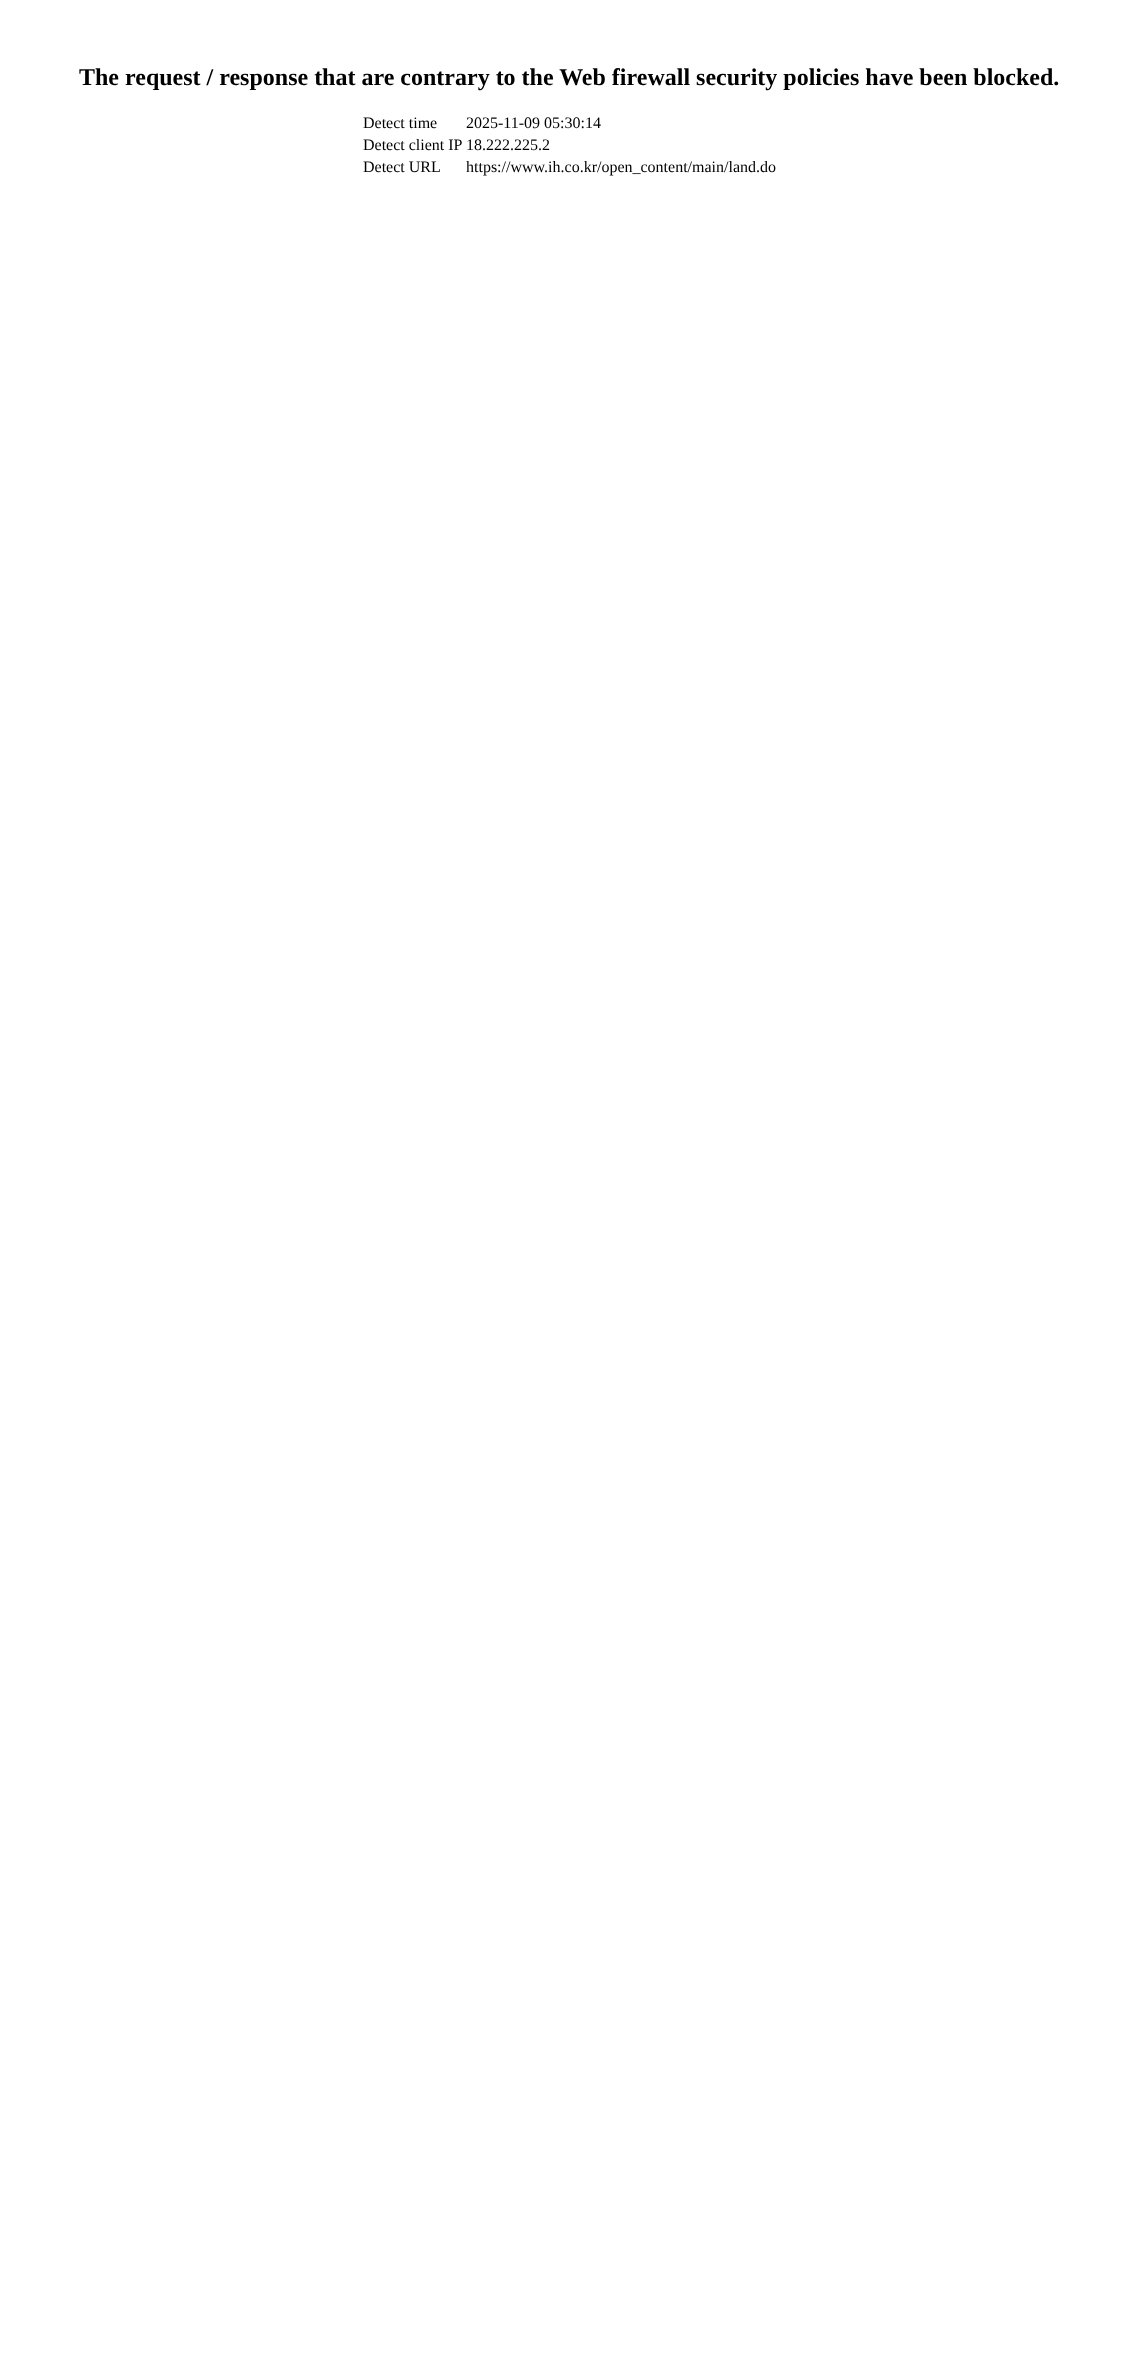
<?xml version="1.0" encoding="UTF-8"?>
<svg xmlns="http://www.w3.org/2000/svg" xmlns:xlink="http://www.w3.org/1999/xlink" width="1139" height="2373">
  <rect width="100%" height="100%" fill="#ffffff" />
  <text x="79" y="85" style="font-family: Liberation Serif; font-size: 24px; font-weight: bold; fill: #000000">The request / response that are contrary to the Web firewall security policies have been blocked.</text>
  <text x="363" y="128" style="font-family: Liberation Serif; font-size: 16px; fill: #000000">Detect time</text>
  <text x="466" y="128" style="font-family: Liberation Serif; font-size: 16px; fill: #000000">2025-11-09 05:30:14</text>
  <text x="363" y="150" style="font-family: Liberation Serif; font-size: 16px; fill: #000000">Detect client IP 18.222.225.2</text>
  <text x="363" y="172" style="font-family: Liberation Serif; font-size: 16px; fill: #000000">Detect URL</text>
  <text x="466" y="172" style="font-family: Liberation Serif; font-size: 16px; fill: #000000">https://www.ih.co.kr/open_content/main/land.do</text>
</svg>
